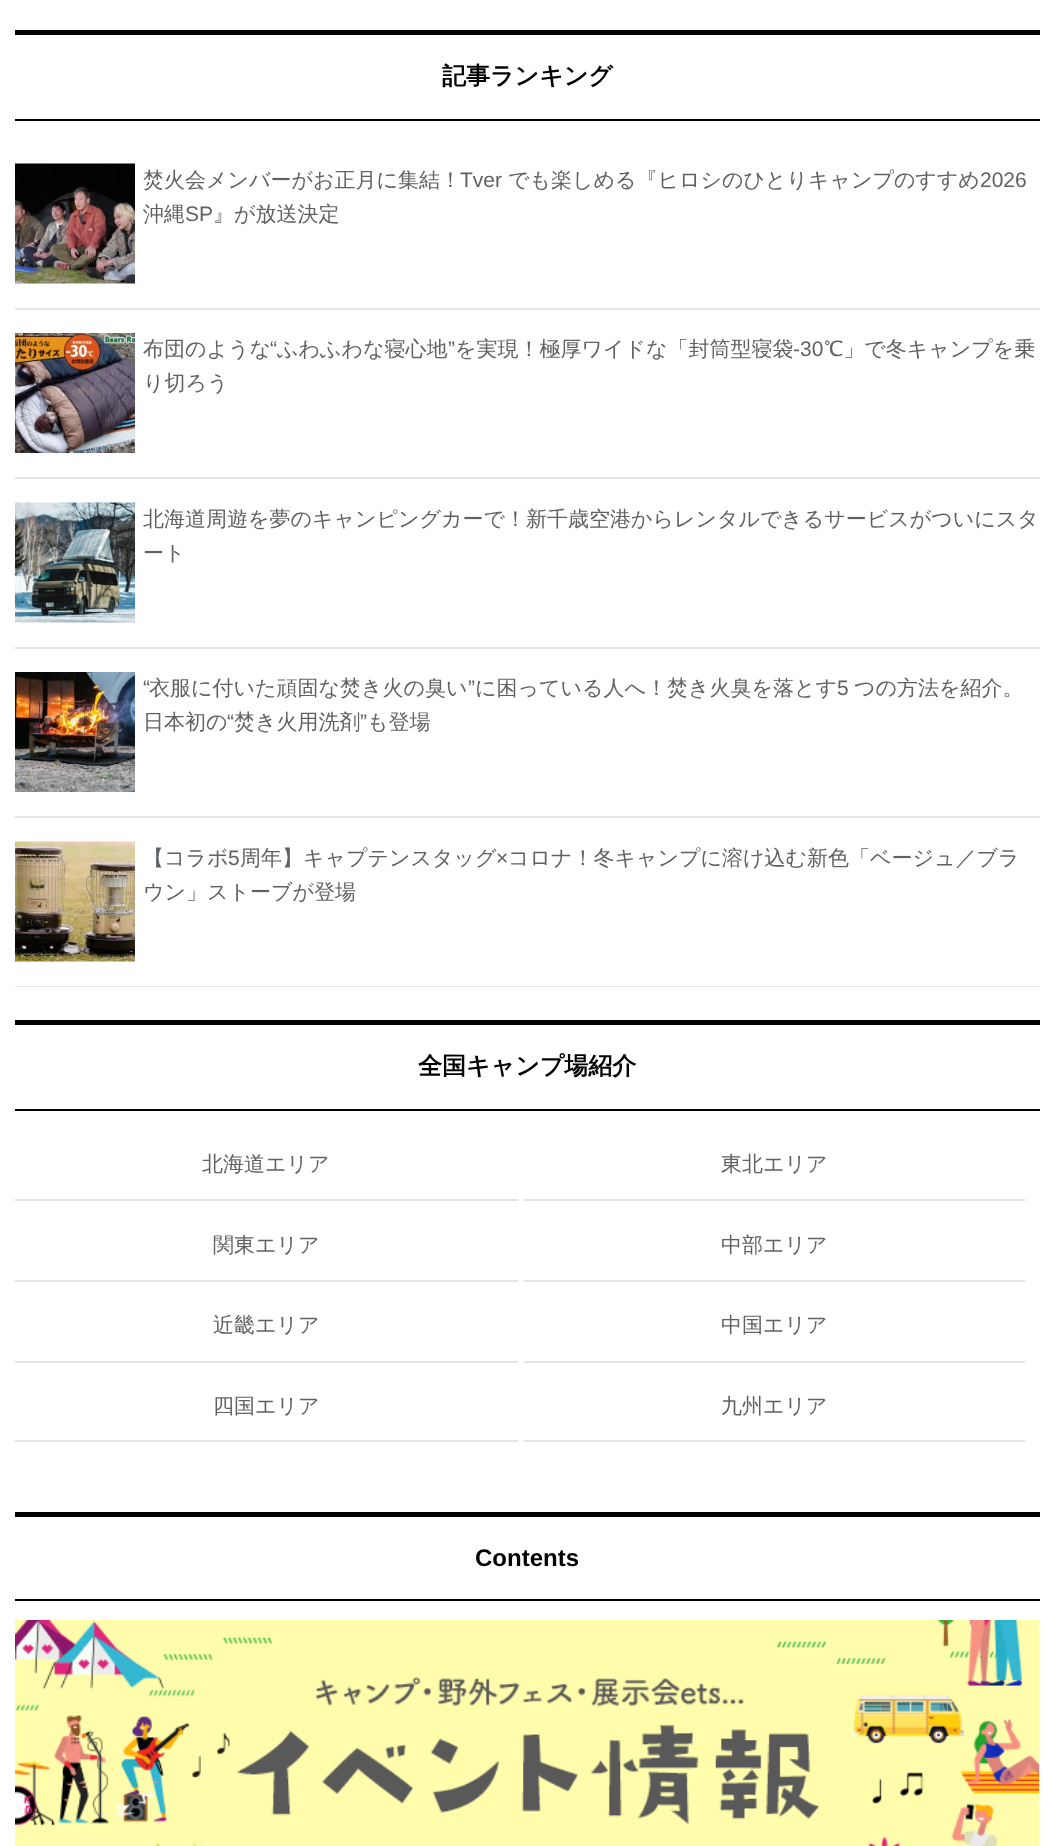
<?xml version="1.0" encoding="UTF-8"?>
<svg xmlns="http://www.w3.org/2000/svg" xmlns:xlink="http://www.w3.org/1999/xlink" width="1054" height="1846">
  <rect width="100%" height="100%" fill="#ffffff" />
  <rect x="15" y="30" width="1025" height="5" fill="#000000" />
  <rect x="15" y="119" width="1025" height="2" fill="#000000" />
  <rect x="15" y="308" width="1025" height="2" fill="#e5e5e5" />
  <image x="15" y="163" width="120" height="121" xlink:href="image1.png" />
  <rect x="15" y="477" width="1025" height="2" fill="#e5e5e5" />
  <image x="15" y="333" width="120" height="120" xlink:href="image2.png" />
  <rect x="15" y="647" width="1025" height="2" fill="#e5e5e5" />
  <image x="15" y="502" width="120" height="121" xlink:href="image3.png" />
  <rect x="15" y="816" width="1025" height="2" fill="#e5e5e5" />
  <image x="15" y="672" width="120" height="120" xlink:href="image4.png" />
  <rect x="15" y="986" width="1025" height="1" fill="#e5e5e5" />
  <image x="15" y="841" width="120" height="121" xlink:href="image5.png" />
  <rect x="15" y="1020" width="1025" height="5" fill="#000000" />
  <rect x="15" y="1109" width="1025" height="2" fill="#000000" />
  <rect x="15" y="1199" width="503" height="2" fill="#e5e5e5" />
  <rect x="524" y="1199" width="501" height="2" fill="#e5e5e5" />
  <rect x="15" y="1280" width="503" height="2" fill="#e5e5e5" />
  <rect x="524" y="1280" width="501" height="2" fill="#e5e5e5" />
  <rect x="15" y="1361" width="503" height="2" fill="#e5e5e5" />
  <rect x="524" y="1361" width="501" height="2" fill="#e5e5e5" />
  <rect x="15" y="1440" width="503" height="2" fill="#e5e5e5" />
  <rect x="524" y="1440" width="501" height="2" fill="#e5e5e5" />
  <rect x="15" y="1512" width="1025" height="5" fill="#000000" />
  <rect x="15" y="1599" width="1025" height="2" fill="#000000" />
  <image x="15" y="1620" width="1025" height="226" xlink:href="image6.png" />
  <text x="442" y="84" style="font-family: WenQuanYi Zen Hei; font-size: 24px; font-weight: bold; fill: #000000">記事ランキング</text>
  <text x="143" y="187" style="font-family: WenQuanYi Zen Hei; font-size: 21px; font-weight: 500; fill: #5e6265">焚火会メンバーがお正月に集結！</text>
  <text x="460" y="187" style="font-family: Liberation Sans; font-size: 21px; fill: #5e6265">Tver</text>
  <text x="508" y="187" style="font-family: WenQuanYi Zen Hei; font-size: 21px; font-weight: 500; fill: #5e6265">でも楽しめる『ヒロシのひとりキャンプのすすめ</text>
  <text x="980" y="187" style="font-family: Liberation Sans; font-size: 21px; fill: #5e6265">2026</text>
  <text x="143" y="221" style="font-family: WenQuanYi Zen Hei; font-size: 21px; font-weight: 500; fill: #5e6265">沖縄</text>
  <text x="185" y="221" style="font-family: Liberation Sans; font-size: 21px; fill: #5e6265">SP</text>
  <text x="213" y="221" style="font-family: WenQuanYi Zen Hei; font-size: 21px; font-weight: 500; fill: #5e6265">』が放送決定</text>
  <text x="143" y="356" style="font-family: WenQuanYi Zen Hei; font-size: 21px; font-weight: 500; fill: #5e6265">布団のような</text>
  <text x="270" y="356" style="font-family: Liberation Sans; font-size: 21px; fill: #5e6265">“</text>
  <text x="277" y="356" style="font-family: WenQuanYi Zen Hei; font-size: 21px; font-weight: 500; fill: #5e6265">ふわふわな寝心地</text>
  <text x="448" y="356" style="font-family: Liberation Sans; font-size: 21px; fill: #5e6265">”</text>
  <text x="455" y="356" style="font-family: WenQuanYi Zen Hei; font-size: 21px; font-weight: 500; fill: #5e6265">を実現！極厚ワイドな「封筒型寝袋</text>
  <text x="793" y="356" style="font-family: Liberation Sans; font-size: 21px; fill: #5e6265">-30</text>
  <text x="824" y="356" style="font-family: WenQuanYi Zen Hei; font-size: 21px; font-weight: 500; fill: #5e6265">℃」で冬キャンプを乗</text>
  <text x="143" y="390" style="font-family: WenQuanYi Zen Hei; font-size: 21px; font-weight: 500; fill: #5e6265">り切ろう</text>
  <text x="143" y="526" style="font-family: WenQuanYi Zen Hei; font-size: 21px; font-weight: 500; fill: #5e6265">北海道周遊を夢のキャンピングカーで！新千歳空港からレンタルできるサービスがついにスタ</text>
  <text x="143" y="560" style="font-family: WenQuanYi Zen Hei; font-size: 21px; font-weight: 500; fill: #5e6265">ート</text>
  <text x="143" y="695" style="font-family: Liberation Sans; font-size: 21px; fill: #5e6265">“</text>
  <text x="149" y="695" style="font-family: WenQuanYi Zen Hei; font-size: 21px; font-weight: 500; fill: #5e6265">衣服に付いた頑固な焚き火の臭い</text>
  <text x="468" y="695" style="font-family: Liberation Sans; font-size: 21px; fill: #5e6265">”</text>
  <text x="475" y="695" style="font-family: WenQuanYi Zen Hei; font-size: 21px; font-weight: 500; fill: #5e6265">に困っている人へ！焚き火臭を落とす</text>
  <text x="837" y="695" style="font-family: Liberation Sans; font-size: 21px; fill: #5e6265">5</text>
  <text x="854" y="695" style="font-family: WenQuanYi Zen Hei; font-size: 21px; font-weight: 500; fill: #5e6265">つの方法を紹介。</text>
  <text x="143" y="729" style="font-family: WenQuanYi Zen Hei; font-size: 21px; font-weight: 500; fill: #5e6265">日本初の</text>
  <text x="227" y="729" style="font-family: Liberation Sans; font-size: 21px; fill: #5e6265">“</text>
  <text x="234" y="729" style="font-family: WenQuanYi Zen Hei; font-size: 21px; font-weight: 500; fill: #5e6265">焚き火用洗剤</text>
  <text x="360" y="729" style="font-family: Liberation Sans; font-size: 21px; fill: #5e6265">”</text>
  <text x="367" y="729" style="font-family: WenQuanYi Zen Hei; font-size: 21px; font-weight: 500; fill: #5e6265">も登場</text>
  <text x="143" y="865" style="font-family: WenQuanYi Zen Hei; font-size: 21px; font-weight: 500; fill: #5e6265">【コラボ</text>
  <text x="228" y="865" style="font-family: Liberation Sans; font-size: 21px; fill: #5e6265">5</text>
  <text x="240" y="865" style="font-family: WenQuanYi Zen Hei; font-size: 21px; font-weight: 500; fill: #5e6265">周年】キャプテンスタッグ</text>
  <text x="496" y="865" style="font-family: Liberation Sans; font-size: 21px; fill: #5e6265">×</text>
  <text x="508" y="865" style="font-family: WenQuanYi Zen Hei; font-size: 21px; font-weight: 500; fill: #5e6265">コロナ！冬キャンプに溶け込む新色「ベージュ／ブラ</text>
  <text x="143" y="899" style="font-family: WenQuanYi Zen Hei; font-size: 21px; font-weight: 500; fill: #5e6265">ウン」ストーブが登場</text>
  <text x="418" y="1074" style="font-family: WenQuanYi Zen Hei; font-size: 24px; font-weight: bold; fill: #000000">全国キャンプ場紹介</text>
  <text x="202" y="1171" style="font-family: WenQuanYi Zen Hei; font-size: 21px; font-weight: 500; fill: #5e6265">北海道エリア</text>
  <text x="721" y="1171" style="font-family: WenQuanYi Zen Hei; font-size: 21px; font-weight: 500; fill: #5e6265">東北エリア</text>
  <text x="213" y="1252" style="font-family: WenQuanYi Zen Hei; font-size: 21px; font-weight: 500; fill: #5e6265">関東エリア</text>
  <text x="721" y="1252" style="font-family: WenQuanYi Zen Hei; font-size: 21px; font-weight: 500; fill: #5e6265">中部エリア</text>
  <text x="213" y="1332" style="font-family: WenQuanYi Zen Hei; font-size: 21px; font-weight: 500; fill: #5e6265">近畿エリア</text>
  <text x="721" y="1332" style="font-family: WenQuanYi Zen Hei; font-size: 21px; font-weight: 500; fill: #5e6265">中国エリア</text>
  <text x="213" y="1413" style="font-family: WenQuanYi Zen Hei; font-size: 21px; font-weight: 500; fill: #5e6265">四国エリア</text>
  <text x="721" y="1413" style="font-family: WenQuanYi Zen Hei; font-size: 21px; font-weight: 500; fill: #5e6265">九州エリア</text>
  <text x="475" y="1566" style="font-family: Liberation Sans; font-size: 24px; font-weight: bold; fill: #000000">Contents</text>
</svg>
